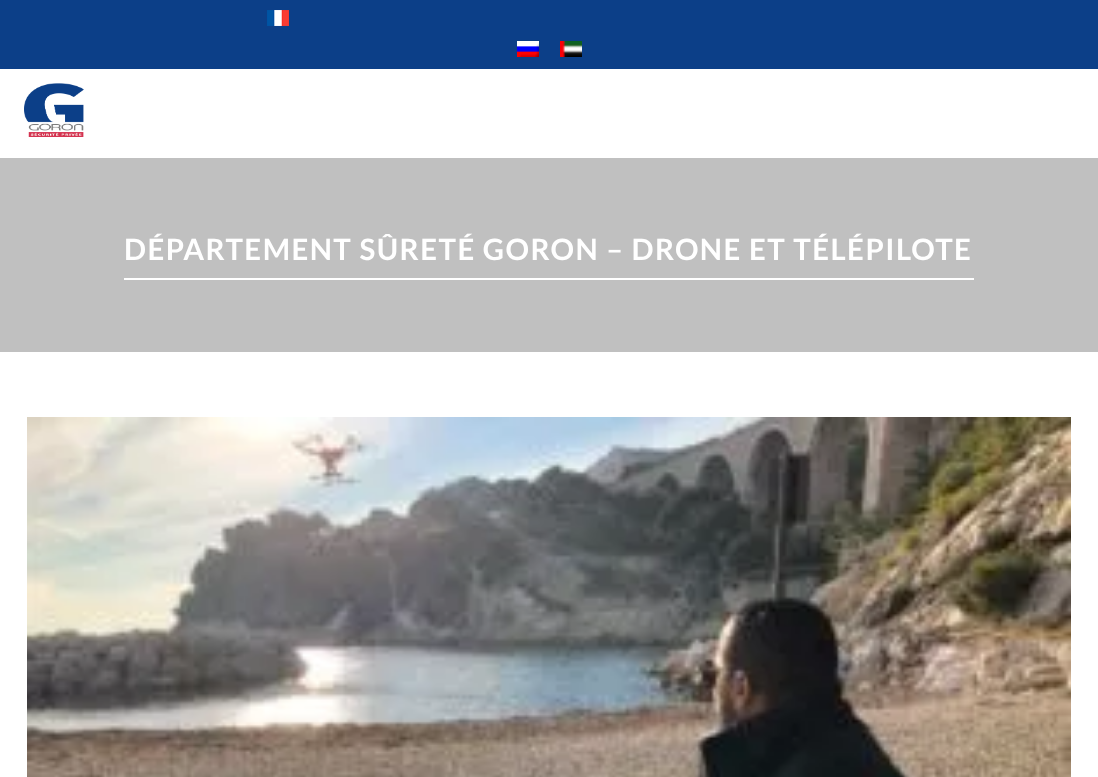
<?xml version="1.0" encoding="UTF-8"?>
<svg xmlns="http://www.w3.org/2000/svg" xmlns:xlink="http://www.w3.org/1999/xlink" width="1098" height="777">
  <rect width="100%" height="100%" fill="#ffffff" />
  <rect width="1098" height="69" fill="#0c3f88" />
  <image x="267" y="10" width="22" height="16" xlink:href="image1.png" />
  <image x="517" y="41" width="22" height="16" xlink:href="image2.png" />
  <image x="560" y="41" width="22" height="16" xlink:href="image3.png" />
  <image x="24" y="83" width="60" height="54" xlink:href="image4.png" />
  <rect y="158" width="1098" height="194" fill="#c0c0c0" />
  <rect x="124" y="278" width="850" height="2" fill="#ffffff" />
  <image x="27" y="417" width="1044" height="360" xlink:href="image5.png" />
  <text x="124" y="260" style="font-family: Lato; font-size: 29.4px; font-weight: bold; letter-spacing: 1.45px; fill: #ffffff">DÉPARTEMENT SÛRETÉ GORON – DRONE ET TÉLÉPILOTE</text>
</svg>
